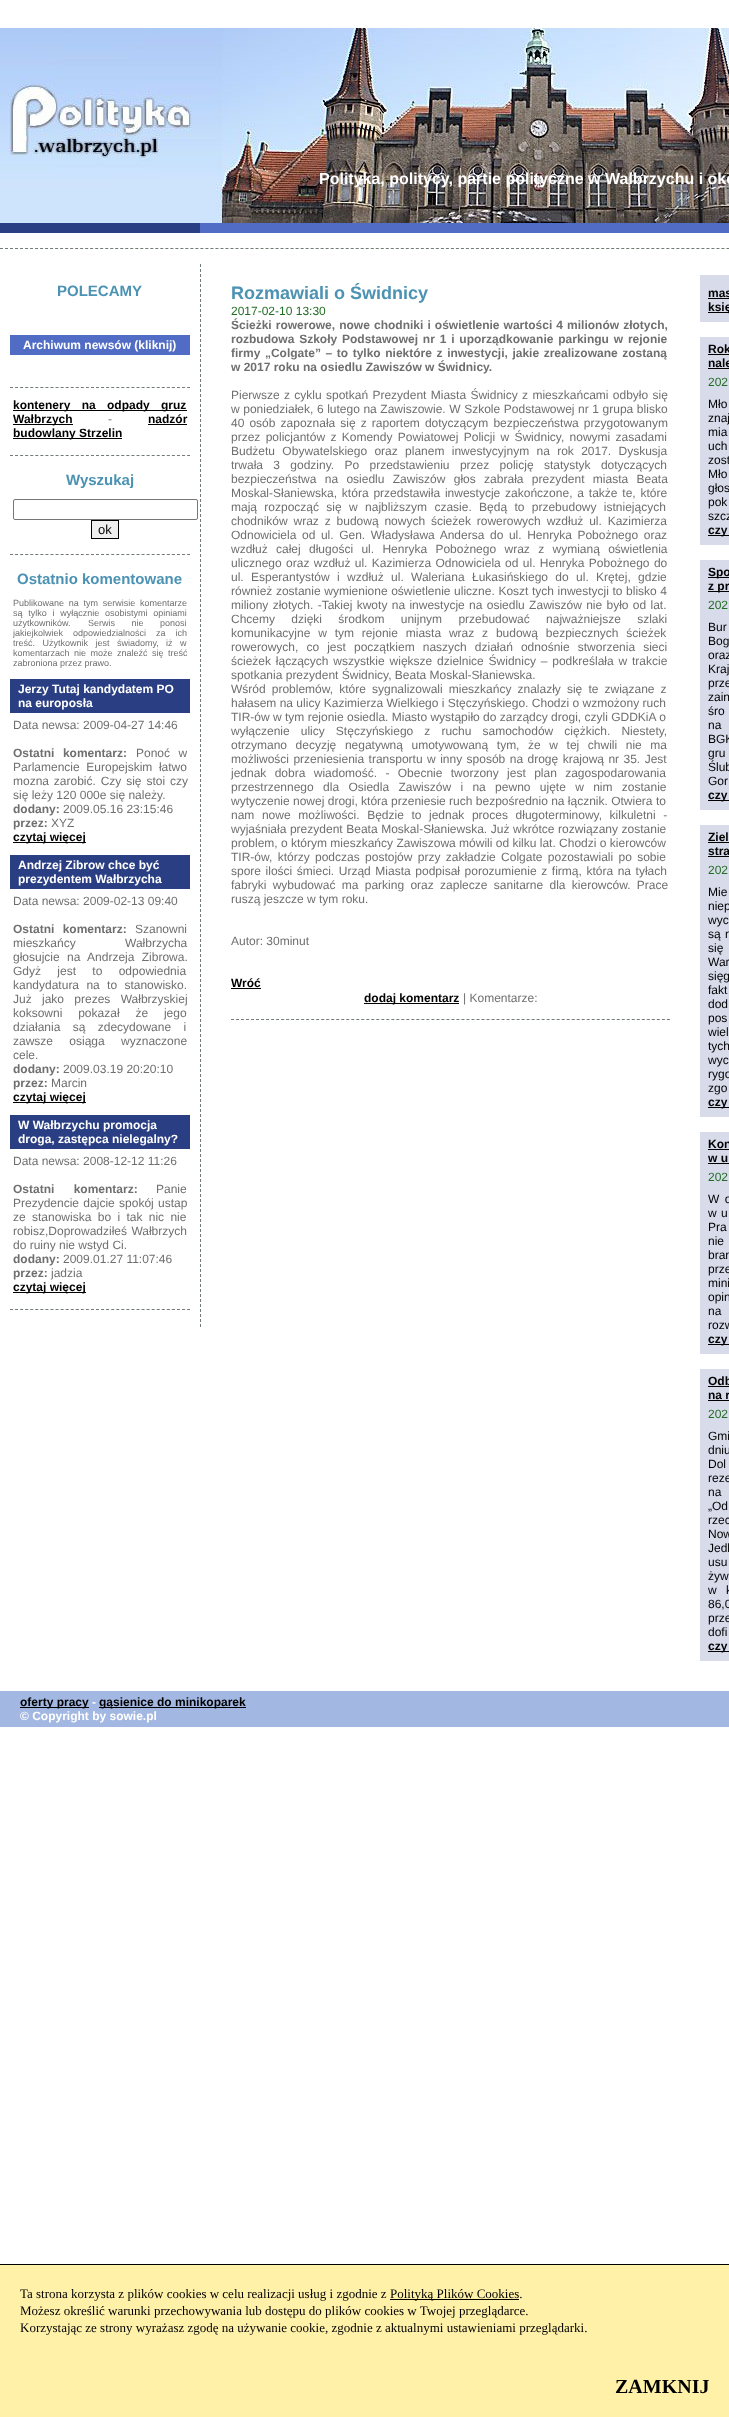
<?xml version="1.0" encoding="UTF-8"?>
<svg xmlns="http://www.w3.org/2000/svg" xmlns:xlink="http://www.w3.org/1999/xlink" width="729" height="2417">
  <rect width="100%" height="100%" fill="#ffffff" />
  <rect y="223" width="200" height="10" fill="#2a3f83" />
  <image x="0" y="28" width="200" height="195" xlink:href="image1.png" />
  <image x="200" y="28" width="529" height="195" xlink:href="image2.png" />
  <rect x="200" y="223" width="529" height="10" fill="#516cc4" />
  <path d="M 0 248.5 h 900" fill="none" stroke="#727c72" stroke-dasharray="3 2.01" />
  <path d="M 200.5 264 v 1063" fill="none" stroke="#727c72" stroke-dasharray="3 2" />
  <path d="M 10 554.5 h 180" fill="none" stroke="#727c72" stroke-dasharray="3 2.06" />
  <rect x="10" y="335" width="180" height="20" fill="#516cc4" />
  <path d="M 10 387.5 h 180" fill="none" stroke="#727c72" stroke-dasharray="3 2.06" />
  <rect x="13" y="410" width="174" height="1" fill="#000000" />
  <rect x="13" y="424" width="60" height="1" fill="#000000" />
  <rect x="148" y="424" width="39" height="1" fill="#000000" />
  <rect x="13" y="438" width="109" height="1" fill="#000000" />
  <path d="M 10 455.5 h 180" fill="none" stroke="#727c72" stroke-dasharray="3 2.06" />
  <rect x="13.5" y="499.5" width="184" height="20" rx="1.5" fill="none" stroke="#767676" />
  <rect x="91.5" y="520.5" width="27" height="18" fill="#efefef" stroke="#000000" />
  <path d="M 10 1309.5 h 180" fill="none" stroke="#727c72" stroke-dasharray="3 2.06" />
  <rect x="10" y="679" width="180" height="34" fill="#2a3f83" />
  <rect x="13" y="842" width="73" height="1" fill="#000000" />
  <rect x="10" y="855" width="180" height="34" fill="#2a3f83" />
  <rect x="13" y="1102" width="73" height="1" fill="#000000" />
  <rect x="10" y="1115" width="180" height="34" fill="#2a3f83" />
  <rect x="13" y="1292" width="73" height="1" fill="#000000" />
  <rect x="231" y="988" width="30" height="1" fill="#000000" />
  <rect x="364" y="1003" width="95" height="1" fill="#000000" />
  <path d="M 231 1019.5 h 439" fill="none" stroke="#727c72" stroke-dasharray="3 2.01" />
  <rect x="700" y="275" width="29" height="1386" fill="#d7dbea" />
  <rect x="700" y="322" width="29" height="15" fill="#ffffff" />
  <rect x="708" y="298" width="21" height="1" fill="#000000" />
  <rect x="708" y="312" width="21" height="1" fill="#000000" />
  <rect x="708" y="354" width="21" height="1" fill="#000000" />
  <rect x="708" y="368" width="21" height="1" fill="#000000" />
  <rect x="700" y="545" width="29" height="15" fill="#ffffff" />
  <rect x="708" y="535" width="21" height="1" fill="#000000" />
  <rect x="708" y="577" width="21" height="1" fill="#000000" />
  <rect x="708" y="591" width="21" height="1" fill="#000000" />
  <rect x="700" y="810" width="29" height="15" fill="#ffffff" />
  <rect x="708" y="800" width="21" height="1" fill="#000000" />
  <rect x="708" y="842" width="21" height="1" fill="#000000" />
  <rect x="708" y="856" width="21" height="1" fill="#000000" />
  <rect x="700" y="1117" width="29" height="15" fill="#ffffff" />
  <rect x="708" y="1107" width="21" height="1" fill="#000000" />
  <rect x="708" y="1149" width="21" height="1" fill="#000000" />
  <rect x="708" y="1163" width="21" height="1" fill="#000000" />
  <rect x="700" y="1354" width="29" height="15" fill="#ffffff" />
  <rect x="708" y="1344" width="21" height="1" fill="#000000" />
  <rect x="708" y="1386" width="21" height="1" fill="#000000" />
  <rect x="708" y="1400" width="21" height="1" fill="#000000" />
  <rect x="708" y="1651" width="21" height="1" fill="#000000" />
  <rect y="1691" width="729" height="36" fill="#a2b7e1" />
  <rect x="20" y="1707" width="69" height="1" fill="#000000" />
  <rect x="99" y="1707" width="147" height="1" fill="#000000" />
  <rect y="2265" width="729" height="152" fill="#fff1a8" />
  <rect y="2264" width="729" height="1" fill="#000000" />
  <rect x="390" y="2299" width="129" height="1" fill="#000000" />
  <text x="319" y="184" style="font-family: Liberation Sans; font-size: 16px; font-weight: bold; fill: #ffffff">Polityka, politycy, partie polityczne w Walbrzychu i oko</text>
  <text x="57" y="296" style="font-family: Liberation Sans; font-size: 15px; font-weight: bold; fill: #4b92b3">POLECAMY</text>
  <text x="23" y="349" style="font-family: Liberation Sans; font-size: 12px; font-weight: bold; fill: #ffffff">Archiwum newsów (kliknij)</text>
  <text x="13" y="409" word-spacing="8" style="font-family: Liberation Sans; font-size: 12px; font-weight: bold; fill: #000000">kontenery na odpady gruz</text>
  <text x="13" y="423" style="font-family: Liberation Sans; font-size: 12px; font-weight: bold; fill: #000000">Wałbrzych</text>
  <text x="108" y="423" style="font-family: Liberation Sans; font-size: 12px; fill: #6f6f6f">-</text>
  <text x="148" y="423" style="font-family: Liberation Sans; font-size: 12px; font-weight: bold; fill: #000000">nadzór</text>
  <text x="13" y="437" style="font-family: Liberation Sans; font-size: 12px; font-weight: bold; fill: #000000">budowlany Strzelin</text>
  <text x="66" y="485" style="font-family: Liberation Sans; font-size: 15px; font-weight: bold; fill: #4b92b3">Wyszukaj</text>
  <text x="98" y="534" style="font-family: Liberation Sans; font-size: 13px; fill: #000000">ok</text>
  <text x="17" y="584" style="font-family: Liberation Sans; font-size: 15px; font-weight: bold; fill: #4b92b3">Ostatnio komentowane</text>
  <text x="13" y="606" word-spacing="2.25" style="font-family: Liberation Sans; font-size: 9px; fill: #6f6f6f">Publikowane na tym serwisie komentarze</text>
  <text x="13" y="616" word-spacing="3.25" style="font-family: Liberation Sans; font-size: 9px; fill: #6f6f6f">są tylko i wyłącznie osobistymi opiniami</text>
  <text x="13" y="626" style="font-family: Liberation Sans; font-size: 9px; fill: #6f6f6f">użytkowników.</text>
  <text x="88" y="626" word-spacing="14" style="font-family: Liberation Sans; font-size: 9px; fill: #6f6f6f">Serwis nie ponosi</text>
  <text x="13" y="636" word-spacing="7.5" style="font-family: Liberation Sans; font-size: 9px; fill: #6f6f6f">jakiejkolwiek odpowiedzialności za ich</text>
  <text x="13" y="646" word-spacing="5" style="font-family: Liberation Sans; font-size: 9px; fill: #6f6f6f">treść. Użytkownik jest świadomy,</text>
  <text x="166" y="646" word-spacing="5" style="font-family: Liberation Sans; font-size: 9px; fill: #6f6f6f">iż w</text>
  <text x="13" y="656" word-spacing="2" style="font-family: Liberation Sans; font-size: 9px; fill: #6f6f6f">komentarzach nie może znaleźć się treść</text>
  <text x="13" y="666" style="font-family: Liberation Sans; font-size: 9px; fill: #6f6f6f">zabroniona przez prawo.</text>
  <text x="18" y="693" style="font-family: Liberation Sans; font-size: 12px; font-weight: bold; fill: #ffffff">Jerzy Tutaj kandydatem PO</text>
  <text x="18" y="707" style="font-family: Liberation Sans; font-size: 12px; font-weight: bold; fill: #ffffff">na europosła</text>
  <text x="13" y="729" style="font-family: Liberation Sans; font-size: 12px; fill: #6f6f6f">Data newsa: 2009-04-27 14:46</text>
  <text x="13" y="757" word-spacing="5.25" style="font-family: Liberation Sans; font-size: 12px; font-weight: bold; fill: #6f6f6f">Ostatni komentarz:</text>
  <text x="136" y="757" word-spacing="5.25" style="font-family: Liberation Sans; font-size: 12px; fill: #6f6f6f">Ponoć w</text>
  <text x="13" y="771" word-spacing="3.25" style="font-family: Liberation Sans; font-size: 12px; fill: #6f6f6f">Parlamencie Europejskim łatwo</text>
  <text x="13" y="785" word-spacing="1.5" style="font-family: Liberation Sans; font-size: 12px; fill: #6f6f6f">mozna zarobić. Czy się stoi czy</text>
  <text x="13" y="799" style="font-family: Liberation Sans; font-size: 12px; fill: #6f6f6f">się leży 120 000e się należy.</text>
  <text x="13" y="813" style="font-family: Liberation Sans; font-size: 12px; font-weight: bold; fill: #6f6f6f">dodany:</text>
  <text x="63" y="813" style="font-family: Liberation Sans; font-size: 12px; fill: #6f6f6f">2009.05.16 23:15:46</text>
  <text x="13" y="827" style="font-family: Liberation Sans; font-size: 12px; font-weight: bold; fill: #6f6f6f">przez:</text>
  <text x="51" y="827" style="font-family: Liberation Sans; font-size: 12px; fill: #6f6f6f">XYZ</text>
  <text x="13" y="841" style="font-family: Liberation Sans; font-size: 12px; font-weight: bold; fill: #000000">czytaj więcej</text>
  <text x="18" y="869" style="font-family: Liberation Sans; font-size: 12px; font-weight: bold; fill: #ffffff">Andrzej Zibrow chce być</text>
  <text x="18" y="883" style="font-family: Liberation Sans; font-size: 12px; font-weight: bold; fill: #ffffff">prezydentem Wałbrzycha</text>
  <text x="13" y="905" style="font-family: Liberation Sans; font-size: 12px; fill: #6f6f6f">Data newsa: 2009-02-13 09:40</text>
  <text x="13" y="933" word-spacing="5" style="font-family: Liberation Sans; font-size: 12px; font-weight: bold; fill: #6f6f6f">Ostatni komentarz:</text>
  <text x="135" y="933" style="font-family: Liberation Sans; font-size: 12px; fill: #6f6f6f">Szanowni</text>
  <text x="13" y="947" word-spacing="46" style="font-family: Liberation Sans; font-size: 12px; fill: #6f6f6f">mieszkańcy Wałbrzycha</text>
  <text x="13" y="961" word-spacing="4" style="font-family: Liberation Sans; font-size: 12px; fill: #6f6f6f">głosujcie na Andrzeja Zibrowa.</text>
  <text x="13" y="975" word-spacing="13" style="font-family: Liberation Sans; font-size: 12px; fill: #6f6f6f">Gdyż jest to odpowiednia</text>
  <text x="13" y="989" word-spacing="4" style="font-family: Liberation Sans; font-size: 12px; fill: #6f6f6f">kandydatura na to stanowisko.</text>
  <text x="13" y="1003" word-spacing="7" style="font-family: Liberation Sans; font-size: 12px; fill: #6f6f6f">Już jako prezes Wałbrzyskiej</text>
  <text x="13" y="1017" word-spacing="12.5" style="font-family: Liberation Sans; font-size: 12px; fill: #6f6f6f">koksowni pokazał że jego</text>
  <text x="13" y="1031" word-spacing="9" style="font-family: Liberation Sans; font-size: 12px; fill: #6f6f6f">działania są zdecydowane i</text>
  <text x="13" y="1045" word-spacing="13" style="font-family: Liberation Sans; font-size: 12px; fill: #6f6f6f">zawsze osiąga wyznaczone</text>
  <text x="13" y="1059" style="font-family: Liberation Sans; font-size: 12px; fill: #6f6f6f">cele.</text>
  <text x="13" y="1073" style="font-family: Liberation Sans; font-size: 12px; font-weight: bold; fill: #6f6f6f">dodany:</text>
  <text x="63" y="1073" style="font-family: Liberation Sans; font-size: 12px; fill: #6f6f6f">2009.03.19 20:20:10</text>
  <text x="13" y="1087" style="font-family: Liberation Sans; font-size: 12px; font-weight: bold; fill: #6f6f6f">przez:</text>
  <text x="51" y="1087" style="font-family: Liberation Sans; font-size: 12px; fill: #6f6f6f">Marcin</text>
  <text x="13" y="1101" style="font-family: Liberation Sans; font-size: 12px; font-weight: bold; fill: #000000">czytaj więcej</text>
  <text x="18" y="1129" style="font-family: Liberation Sans; font-size: 12px; font-weight: bold; fill: #ffffff">W Wałbrzychu promocja</text>
  <text x="18" y="1143" style="font-family: Liberation Sans; font-size: 12px; font-weight: bold; fill: #ffffff">droga, zastępca nielegalny?</text>
  <text x="13" y="1165" style="font-family: Liberation Sans; font-size: 12px; fill: #6f6f6f">Data newsa: 2008-12-12 11:26</text>
  <text x="13" y="1193" word-spacing="16" style="font-family: Liberation Sans; font-size: 12px; font-weight: bold; fill: #6f6f6f">Ostatni komentarz:</text>
  <text x="156" y="1193" style="font-family: Liberation Sans; font-size: 12px; fill: #6f6f6f">Panie</text>
  <text x="13" y="1207" word-spacing="1" style="font-family: Liberation Sans; font-size: 12px; fill: #6f6f6f">Prezydencie dajcie spokój ustap</text>
  <text x="13" y="1221" word-spacing="3" style="font-family: Liberation Sans; font-size: 12px; fill: #6f6f6f">ze stanowiska bo i tak nic nie</text>
  <text x="13" y="1235" word-spacing="1" style="font-family: Liberation Sans; font-size: 12px; fill: #6f6f6f">robisz,Doprowadziłeś Wałbrzych</text>
  <text x="13" y="1249" style="font-family: Liberation Sans; font-size: 12px; fill: #6f6f6f">do ruiny nie wstyd Ci.</text>
  <text x="13" y="1263" style="font-family: Liberation Sans; font-size: 12px; font-weight: bold; fill: #6f6f6f">dodany:</text>
  <text x="63" y="1263" style="font-family: Liberation Sans; font-size: 12px; fill: #6f6f6f">2009.01.27 11:07:46</text>
  <text x="13" y="1277" style="font-family: Liberation Sans; font-size: 12px; font-weight: bold; fill: #6f6f6f">przez:</text>
  <text x="51" y="1277" style="font-family: Liberation Sans; font-size: 12px; fill: #6f6f6f">jadzia</text>
  <text x="13" y="1291" style="font-family: Liberation Sans; font-size: 12px; font-weight: bold; fill: #000000">czytaj więcej</text>
  <text x="231" y="299" style="font-family: Liberation Sans; font-size: 18px; font-weight: bold; fill: #4b92b3">Rozmawiali o Świdnicy</text>
  <text x="231" y="315" style="font-family: Liberation Sans; font-size: 12px; fill: #216d23">2017-02-10 13:30</text>
  <text x="231" y="329" word-spacing="0.75" style="font-family: Liberation Sans; font-size: 12px; font-weight: bold; fill: #6f6f6f">Ścieżki rowerowe, nowe chodniki i oświetlenie wartości 4 milionów złotych,</text>
  <text x="231" y="343" word-spacing="1.5" style="font-family: Liberation Sans; font-size: 12px; font-weight: bold; fill: #6f6f6f">rozbudowa Szkoły Podstawowej nr 1 i uporządkowanie parkingu w rejonie</text>
  <text x="231" y="357" word-spacing="1.25" style="font-family: Liberation Sans; font-size: 12px; font-weight: bold; fill: #6f6f6f">firmy „Colgate” – to tylko niektóre z inwestycji, jakie zrealizowane zostaną</text>
  <text x="231" y="371" style="font-family: Liberation Sans; font-size: 12px; font-weight: bold; fill: #6f6f6f">w 2017 roku na osiedlu Zawiszów w Świdnicy.</text>
  <text x="231" y="399" word-spacing="1" style="font-family: Liberation Sans; font-size: 12px; fill: #6f6f6f">Pierwsze z cyklu spotkań Prezydent Miasta Świdnicy z mieszkańcami odbyło się</text>
  <text x="231" y="413" word-spacing="0.25" style="font-family: Liberation Sans; font-size: 12px; fill: #6f6f6f">w poniedziałek, 6 lutego na Zawiszowie. W Szkole Podstawowej nr 1 grupa blisko</text>
  <text x="231" y="427" word-spacing="1.75" style="font-family: Liberation Sans; font-size: 12px; fill: #6f6f6f">40 osób zapoznała się z raportem dotyczącym bezpieczeństwa przygotowanym</text>
  <text x="231" y="441" word-spacing="2" style="font-family: Liberation Sans; font-size: 12px; fill: #6f6f6f">przez policjantów z Komendy Powiatowej Policji w Świdnicy, nowymi zasadami</text>
  <text x="231" y="455" word-spacing="4" style="font-family: Liberation Sans; font-size: 12px; fill: #6f6f6f">Budżetu Obywatelskiego oraz planem inwestycyjnym na rok 2017. Dyskusja</text>
  <text x="231" y="469" word-spacing="7" style="font-family: Liberation Sans; font-size: 12px; fill: #6f6f6f">trwała 3 godziny. Po przedstawieniu przez policję statystyk dotyczących</text>
  <text x="231" y="483" word-spacing="5" style="font-family: Liberation Sans; font-size: 12px; fill: #6f6f6f">bezpieczeństwa na osiedlu Zawiszów głos zabrała prezydent miasta Beata</text>
  <text x="231" y="497" word-spacing="1.5" style="font-family: Liberation Sans; font-size: 12px; fill: #6f6f6f">Moskal-Słaniewska, która przedstawiła inwestycje zakończone, a także te, które</text>
  <text x="231" y="511" word-spacing="4" style="font-family: Liberation Sans; font-size: 12px; fill: #6f6f6f">mają rozpocząć się w najbliższym czasie. Będą to przebudowy istniejących</text>
  <text x="231" y="525" word-spacing="2.5" style="font-family: Liberation Sans; font-size: 12px; fill: #6f6f6f">chodników wraz z budową nowych ścieżek rowerowych wzdłuż ul. Kazimierza</text>
  <text x="231" y="539" word-spacing="2.25" style="font-family: Liberation Sans; font-size: 12px; fill: #6f6f6f">Odnowiciela od ul. Gen. Władysława Andersa do ul. Henryka Pobożnego oraz</text>
  <text x="231" y="553" word-spacing="5" style="font-family: Liberation Sans; font-size: 12px; fill: #6f6f6f">wzdłuż całej długości ul. Henryka Pobożnego wraz z wymianą oświetlenia</text>
  <text x="231" y="567" word-spacing="1" style="font-family: Liberation Sans; font-size: 12px; fill: #6f6f6f">ulicznego oraz wzdłuż ul. Kazimierza Odnowiciela od ul. Henryka Pobożnego do</text>
  <text x="231" y="581" word-spacing="4" style="font-family: Liberation Sans; font-size: 12px; fill: #6f6f6f">ul. Esperantystów i wzdłuż ul. Waleriana Łukasińskiego do ul. Krętej, gdzie</text>
  <text x="231" y="595" word-spacing="0.25" style="font-family: Liberation Sans; font-size: 12px; fill: #6f6f6f">również zostanie wymienione oświetlenie uliczne. Koszt tych inwestycji to blisko 4</text>
  <text x="231" y="609" word-spacing="1" style="font-family: Liberation Sans; font-size: 12px; fill: #6f6f6f">miliony złotych. -Takiej kwoty na inwestycje na osiedlu Zawiszów nie było od lat.</text>
  <text x="231" y="623" word-spacing="13" style="font-family: Liberation Sans; font-size: 12px; fill: #6f6f6f">Chcemy dzięki środkom unijnym przebudować najważniejsze szlaki</text>
  <text x="231" y="637" word-spacing="4.5" style="font-family: Liberation Sans; font-size: 12px; fill: #6f6f6f">komunikacyjne w tym rejonie miasta wraz z budową bezpiecznych ścieżek</text>
  <text x="231" y="651" word-spacing="4.75" style="font-family: Liberation Sans; font-size: 12px; fill: #6f6f6f">rowerowych, co jest początkiem naszych działań odnośnie stworzenia sieci</text>
  <text x="231" y="665" word-spacing="1.5" style="font-family: Liberation Sans; font-size: 12px; fill: #6f6f6f">ścieżek łączących wszystkie większe dzielnice Świdnicy – podkreślała w trakcie</text>
  <text x="231" y="679" style="font-family: Liberation Sans; font-size: 12px; fill: #6f6f6f">spotkania prezydent Świdnicy, Beata Moskal-Słaniewska.</text>
  <text x="231" y="693" word-spacing="2.75" style="font-family: Liberation Sans; font-size: 12px; fill: #6f6f6f">Wśród problemów, które sygnalizowali mieszkańcy znalazły się te związane z</text>
  <text x="231" y="707" style="font-family: Liberation Sans; font-size: 12px; fill: #6f6f6f">hałasem na ulicy Kazimierza Wielkiego i Stęczyńskiego. Chodzi o wzmożony ruch</text>
  <text x="231" y="721" style="font-family: Liberation Sans; font-size: 12px; fill: #6f6f6f">TIR-ów w tym rejonie osiedla. Miasto wystąpiło do zarządcy drogi, czyli GDDKiA o</text>
  <text x="231" y="735" word-spacing="7.75" style="font-family: Liberation Sans; font-size: 12px; fill: #6f6f6f">wyłączenie ulicy Stęczyńskiego z ruchu samochodów ciężkich. Niestety,</text>
  <text x="231" y="749" word-spacing="5.25" style="font-family: Liberation Sans; font-size: 12px; fill: #6f6f6f">otrzymano decyzję negatywną umotywowaną tym, że w tej chwili nie ma</text>
  <text x="231" y="763" word-spacing="1.1" style="font-family: Liberation Sans; font-size: 12px; fill: #6f6f6f">możliwości przeniesienia transportu w inny sposób na drogę krajową nr 35. Jest</text>
  <text x="231" y="777" word-spacing="5" style="font-family: Liberation Sans; font-size: 12px; fill: #6f6f6f">jednak dobra wiadomość. - Obecnie tworzony jest plan zagospodarowania</text>
  <text x="231" y="791" word-spacing="6" style="font-family: Liberation Sans; font-size: 12px; fill: #6f6f6f">przestrzennego dla Osiedla Zawiszów i na pewno ujęte w nim zostanie</text>
  <text x="231" y="805" style="font-family: Liberation Sans; font-size: 12px; fill: #6f6f6f">wytyczenie nowej drogi, która przeniesie ruch bezpośrednio na łącznik. Otwiera to</text>
  <text x="231" y="819" word-spacing="4.25" style="font-family: Liberation Sans; font-size: 12px; fill: #6f6f6f">nam nowe możliwości. Będzie to jednak proces długoterminowy, kilkuletni -</text>
  <text x="231" y="833" word-spacing="0.25" style="font-family: Liberation Sans; font-size: 12px; fill: #6f6f6f">wyjaśniała prezydent Beata Moskal-Słaniewska. Już wkrótce rozwiązany zostanie</text>
  <text x="231" y="847" style="font-family: Liberation Sans; font-size: 12px; fill: #6f6f6f">problem, o którym mieszkańcy Zawiszowa mówili od kilku lat. Chodzi o kierowców</text>
  <text x="231" y="861" word-spacing="2" style="font-family: Liberation Sans; font-size: 12px; fill: #6f6f6f">TIR-ów, którzy podczas postojów przy zakładzie Colgate pozostawiali po sobie</text>
  <text x="231" y="875" word-spacing="1.25" style="font-family: Liberation Sans; font-size: 12px; fill: #6f6f6f">spore ilości śmieci. Urząd Miasta podpisał porozumienie z firmą, która na tyłach</text>
  <text x="231" y="889" word-spacing="3" style="font-family: Liberation Sans; font-size: 12px; fill: #6f6f6f">fabryki wybudować ma parking oraz zaplecze sanitarne dla kierowców. Prace</text>
  <text x="231" y="903" style="font-family: Liberation Sans; font-size: 12px; fill: #6f6f6f">ruszą jeszcze w tym roku.</text>
  <text x="231" y="945" style="font-family: Liberation Sans; font-size: 12px; fill: #6f6f6f">Autor: 30minut</text>
  <text x="231" y="987" style="font-family: Liberation Sans; font-size: 12px; font-weight: bold; fill: #000000">Wróć</text>
  <text x="364" y="1002" style="font-family: Liberation Sans; font-size: 12px; font-weight: bold; fill: #000000">dodaj komentarz</text>
  <text x="463" y="1002" style="font-family: Liberation Sans; font-size: 12px; fill: #6f6f6f">| Komentarze:</text>
  <text x="708" y="297" word-spacing="14" style="font-family: Liberation Sans; font-size: 12px; font-weight: bold; fill: #000000">mas</text>
  <text x="708" y="311" style="font-family: Liberation Sans; font-size: 12px; font-weight: bold; fill: #000000">księ</text>
  <text x="708" y="353" style="font-family: Liberation Sans; font-size: 12px; font-weight: bold; fill: #000000">Rok</text>
  <text x="708" y="367" style="font-family: Liberation Sans; font-size: 12px; font-weight: bold; fill: #000000">nale</text>
  <text x="708" y="386" style="font-family: Liberation Sans; font-size: 12px; fill: #216d23">202</text>
  <text x="708" y="408" word-spacing="16" style="font-family: Liberation Sans; font-size: 12px; fill: #000000">Mło</text>
  <text x="708" y="422" word-spacing="9" style="font-family: Liberation Sans; font-size: 12px; fill: #000000">znaj</text>
  <text x="708" y="436" word-spacing="9" style="font-family: Liberation Sans; font-size: 12px; fill: #000000">mia</text>
  <text x="708" y="450" word-spacing="1" style="font-family: Liberation Sans; font-size: 12px; fill: #000000">uch</text>
  <text x="708" y="464" word-spacing="19" style="font-family: Liberation Sans; font-size: 12px; fill: #000000">zost</text>
  <text x="708" y="478" word-spacing="2" style="font-family: Liberation Sans; font-size: 12px; fill: #000000">Mło</text>
  <text x="708" y="492" word-spacing="1" style="font-family: Liberation Sans; font-size: 12px; fill: #000000">głos</text>
  <text x="708" y="506" word-spacing="7" style="font-family: Liberation Sans; font-size: 12px; fill: #000000">pok</text>
  <text x="708" y="520" style="font-family: Liberation Sans; font-size: 12px; fill: #000000">szcz</text>
  <text x="708" y="534" style="font-family: Liberation Sans; font-size: 12px; font-weight: bold; fill: #000000">czy</text>
  <text x="708" y="576" style="font-family: Liberation Sans; font-size: 12px; font-weight: bold; fill: #000000">Spo</text>
  <text x="708" y="590" style="font-family: Liberation Sans; font-size: 12px; font-weight: bold; fill: #000000">z pr</text>
  <text x="708" y="609" style="font-family: Liberation Sans; font-size: 12px; fill: #216d23">202</text>
  <text x="708" y="631" word-spacing="28" style="font-family: Liberation Sans; font-size: 12px; fill: #000000">Bur</text>
  <text x="708" y="645" word-spacing="4" style="font-family: Liberation Sans; font-size: 12px; fill: #000000">Bog</text>
  <text x="708" y="659" word-spacing="3.25" style="font-family: Liberation Sans; font-size: 12px; fill: #000000">oraz</text>
  <text x="708" y="673" word-spacing="66" style="font-family: Liberation Sans; font-size: 12px; fill: #000000">Kraj</text>
  <text x="708" y="687" style="font-family: Liberation Sans; font-size: 12px; fill: #000000">prze</text>
  <text x="708" y="701" word-spacing="15" style="font-family: Liberation Sans; font-size: 12px; fill: #000000">zain</text>
  <text x="708" y="715" word-spacing="5" style="font-family: Liberation Sans; font-size: 12px; fill: #000000">śro</text>
  <text x="708" y="729" word-spacing="4" style="font-family: Liberation Sans; font-size: 12px; fill: #000000">na</text>
  <text x="708" y="743" word-spacing="2.75" style="font-family: Liberation Sans; font-size: 12px; fill: #000000">BGK</text>
  <text x="708" y="757" word-spacing="3" style="font-family: Liberation Sans; font-size: 12px; fill: #000000">gru</text>
  <text x="708" y="771" word-spacing="13" style="font-family: Liberation Sans; font-size: 12px; fill: #000000">Ślub</text>
  <text x="708" y="785" style="font-family: Liberation Sans; font-size: 12px; fill: #000000">Gor</text>
  <text x="708" y="799" style="font-family: Liberation Sans; font-size: 12px; font-weight: bold; fill: #000000">czy</text>
  <text x="708" y="841" style="font-family: Liberation Sans; font-size: 12px; font-weight: bold; fill: #000000">Ziel</text>
  <text x="708" y="855" style="font-family: Liberation Sans; font-size: 12px; font-weight: bold; fill: #000000">stra</text>
  <text x="708" y="874" style="font-family: Liberation Sans; font-size: 12px; fill: #216d23">202</text>
  <text x="708" y="896" word-spacing="18" style="font-family: Liberation Sans; font-size: 12px; fill: #000000">Mie</text>
  <text x="708" y="910" word-spacing="2" style="font-family: Liberation Sans; font-size: 12px; fill: #000000">niep</text>
  <text x="708" y="924" word-spacing="4" style="font-family: Liberation Sans; font-size: 12px; fill: #000000">wyc</text>
  <text x="708" y="938" word-spacing="1" style="font-family: Liberation Sans; font-size: 12px; fill: #000000">są n</text>
  <text x="708" y="952" word-spacing="1" style="font-family: Liberation Sans; font-size: 12px; fill: #000000">się</text>
  <text x="708" y="966" word-spacing="1" style="font-family: Liberation Sans; font-size: 12px; fill: #000000">War</text>
  <text x="708" y="980" word-spacing="6" style="font-family: Liberation Sans; font-size: 12px; fill: #000000">sięg</text>
  <text x="708" y="994" word-spacing="12.5" style="font-family: Liberation Sans; font-size: 12px; fill: #000000">fakt</text>
  <text x="708" y="1008" word-spacing="23" style="font-family: Liberation Sans; font-size: 12px; fill: #000000">dod</text>
  <text x="708" y="1022" word-spacing="7" style="font-family: Liberation Sans; font-size: 12px; fill: #000000">pos</text>
  <text x="708" y="1036" word-spacing="10" style="font-family: Liberation Sans; font-size: 12px; fill: #000000">wiel</text>
  <text x="708" y="1050" word-spacing="20" style="font-family: Liberation Sans; font-size: 12px; fill: #000000">tych</text>
  <text x="708" y="1064" word-spacing="28" style="font-family: Liberation Sans; font-size: 12px; fill: #000000">wyc</text>
  <text x="708" y="1078" word-spacing="2" style="font-family: Liberation Sans; font-size: 12px; fill: #000000">rygo</text>
  <text x="708" y="1092" style="font-family: Liberation Sans; font-size: 12px; fill: #000000">zgo</text>
  <text x="708" y="1106" style="font-family: Liberation Sans; font-size: 12px; font-weight: bold; fill: #000000">czy</text>
  <text x="708" y="1148" style="font-family: Liberation Sans; font-size: 12px; font-weight: bold; fill: #000000">Kon</text>
  <text x="708" y="1162" style="font-family: Liberation Sans; font-size: 12px; font-weight: bold; fill: #000000">w u</text>
  <text x="708" y="1181" style="font-family: Liberation Sans; font-size: 12px; fill: #216d23">202</text>
  <text x="708" y="1203" word-spacing="2" style="font-family: Liberation Sans; font-size: 12px; fill: #000000">W o</text>
  <text x="708" y="1217" word-spacing="1" style="font-family: Liberation Sans; font-size: 12px; fill: #000000">w u</text>
  <text x="708" y="1231" word-spacing="2.5" style="font-family: Liberation Sans; font-size: 12px; fill: #000000">Pra</text>
  <text x="708" y="1245" word-spacing="21" style="font-family: Liberation Sans; font-size: 12px; fill: #000000">nie</text>
  <text x="708" y="1259" word-spacing="59" style="font-family: Liberation Sans; font-size: 12px; fill: #000000">bran</text>
  <text x="708" y="1273" word-spacing="4.25" style="font-family: Liberation Sans; font-size: 12px; fill: #000000">prze</text>
  <text x="708" y="1287" word-spacing="13" style="font-family: Liberation Sans; font-size: 12px; fill: #000000">mini</text>
  <text x="708" y="1301" word-spacing="3.25" style="font-family: Liberation Sans; font-size: 12px; fill: #000000">opin</text>
  <text x="708" y="1315" word-spacing="12" style="font-family: Liberation Sans; font-size: 12px; fill: #000000">na</text>
  <text x="708" y="1329" style="font-family: Liberation Sans; font-size: 12px; fill: #000000">rozw</text>
  <text x="708" y="1343" style="font-family: Liberation Sans; font-size: 12px; font-weight: bold; fill: #000000">czy</text>
  <text x="708" y="1385" style="font-family: Liberation Sans; font-size: 12px; font-weight: bold; fill: #000000">Odb</text>
  <text x="708" y="1399" style="font-family: Liberation Sans; font-size: 12px; font-weight: bold; fill: #000000">na r</text>
  <text x="708" y="1418" style="font-family: Liberation Sans; font-size: 12px; fill: #216d23">202</text>
  <text x="708" y="1440" word-spacing="3" style="font-family: Liberation Sans; font-size: 12px; fill: #000000">Gmi</text>
  <text x="708" y="1454" word-spacing="5" style="font-family: Liberation Sans; font-size: 12px; fill: #000000">dniu</text>
  <text x="708" y="1468" word-spacing="8" style="font-family: Liberation Sans; font-size: 12px; fill: #000000">Dol</text>
  <text x="708" y="1482" word-spacing="2" style="font-family: Liberation Sans; font-size: 12px; fill: #000000">reze</text>
  <text x="708" y="1496" word-spacing="6" style="font-family: Liberation Sans; font-size: 12px; fill: #000000">na</text>
  <text x="708" y="1510" style="font-family: Liberation Sans; font-size: 12px; fill: #000000">„Od</text>
  <text x="708" y="1524" word-spacing="12" style="font-family: Liberation Sans; font-size: 12px; fill: #000000">rzec</text>
  <text x="708" y="1538" word-spacing="12" style="font-family: Liberation Sans; font-size: 12px; fill: #000000">Now</text>
  <text x="708" y="1552" word-spacing="12.5" style="font-family: Liberation Sans; font-size: 12px; fill: #000000">Jedl</text>
  <text x="708" y="1566" word-spacing="23" style="font-family: Liberation Sans; font-size: 12px; fill: #000000">usu</text>
  <text x="708" y="1580" word-spacing="6" style="font-family: Liberation Sans; font-size: 12px; fill: #000000">żyw</text>
  <text x="708" y="1594" word-spacing="6" style="font-family: Liberation Sans; font-size: 12px; fill: #000000">w k</text>
  <text x="708" y="1608" word-spacing="1" style="font-family: Liberation Sans; font-size: 12px; fill: #000000">86,0</text>
  <text x="708" y="1622" word-spacing="78" style="font-family: Liberation Sans; font-size: 12px; fill: #000000">prze</text>
  <text x="708" y="1636" style="font-family: Liberation Sans; font-size: 12px; fill: #000000">dofi</text>
  <text x="708" y="1650" style="font-family: Liberation Sans; font-size: 12px; font-weight: bold; fill: #000000">czy</text>
  <text x="20" y="1706" style="font-family: Liberation Sans; font-size: 12px; font-weight: bold; fill: #000000">oferty pracy</text>
  <text x="92" y="1706" style="font-family: Liberation Sans; font-size: 12px; font-weight: bold; fill: #ffffff">-</text>
  <text x="99" y="1706" style="font-family: Liberation Sans; font-size: 12px; font-weight: bold; fill: #000000">gąsienice do minikoparek</text>
  <text x="20" y="1720" style="font-family: Liberation Sans; font-size: 12px; font-weight: bold; fill: #ffffff">© Copyright by sowie.pl</text>
  <text x="20" y="2298" style="font-family: Liberation Serif; font-size: 13px; fill: #000000">Ta strona korzysta z plików cookies w celu realizacji usług i zgodnie z</text>
  <text x="390" y="2298" style="font-family: Liberation Serif; font-size: 13px; fill: #000000">Polityką Plików Cookies.</text>
  <text x="20" y="2315" style="font-family: Liberation Serif; font-size: 13px; fill: #000000">Możesz określić warunki przechowywania lub dostępu do plików cookies w Twojej przeglądarce.</text>
  <text x="20" y="2332" style="font-family: Liberation Serif; font-size: 13px; fill: #000000">Korzystając ze strony wyrażasz zgodę na używanie cookie, zgodnie z aktualnymi ustawieniami przeglądarki.</text>
  <text x="615" y="2393" style="font-family: Liberation Serif; font-size: 20px; font-weight: bold; fill: #000000">ZAMKNIJ</text>
</svg>
